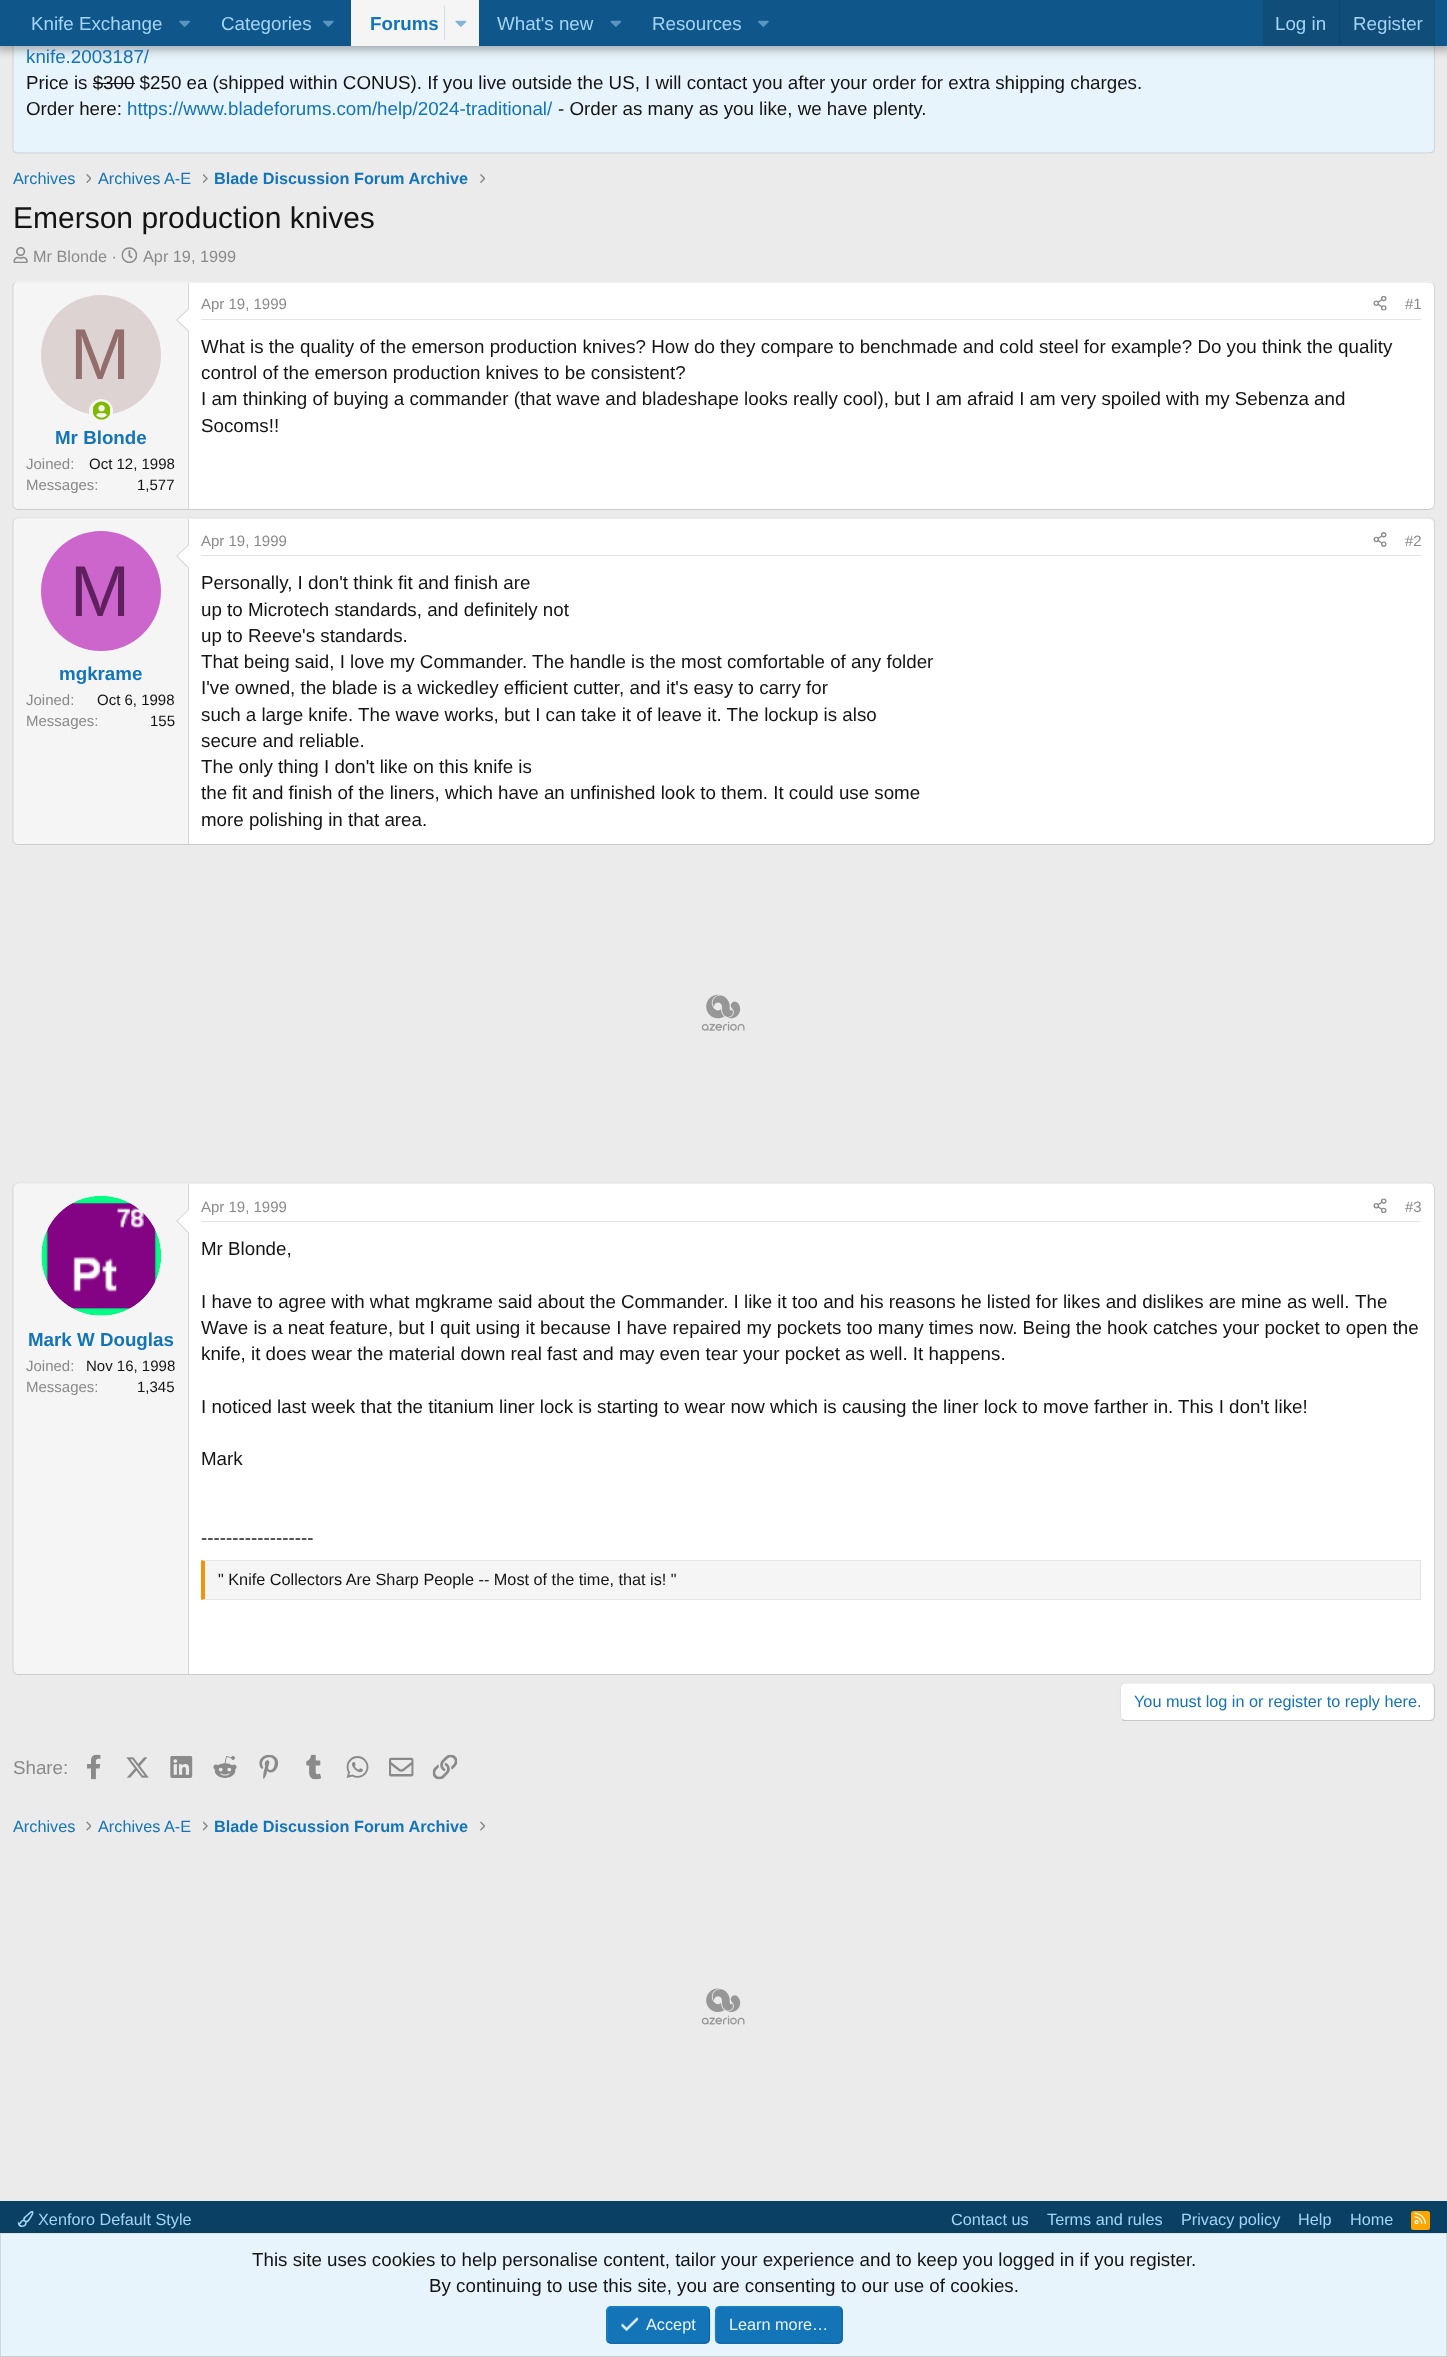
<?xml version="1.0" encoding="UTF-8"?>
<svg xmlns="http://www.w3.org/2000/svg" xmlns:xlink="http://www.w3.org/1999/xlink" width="1447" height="2357">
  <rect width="100%" height="100%" fill="#ebebeb" />
  <rect x="13" y="-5" width="1422" height="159" rx="5" fill="#e8f4fc" />
  <path d="M 1433 -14.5 c 1 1 1.5 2 1.5 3.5 v 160 c 0 1 -0.5 2 -1.5 3" fill="none" stroke="#d6d6d6" stroke-width="1.2" />
  <path d="M 1433 152 l -3 1 h -1412.5 l -3 -1" fill="none" stroke="#cccccc" stroke-width="1.2" />
  <path d="M 14.5 152 c -1 -1 -1.5 -2 -1.5 -3 v -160 c 0 -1.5 0.5 -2.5 1.5 -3.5" fill="none" stroke="#d6d6d6" stroke-width="1.2" />
  <rect x="-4" y="-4" width="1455" height="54" fill="#000000" fill-opacity="0.3" filter="blur(5px)" />
  <rect width="1447" height="46" fill="#0f578a" />
  <image x="179" y="20" width="11" height="7" xlink:href="image1.png" />
  <image x="323" y="20" width="11" height="7" xlink:href="image2.png" />
  <rect x="351" width="128" height="46" fill="#f5f5f5" />
  <rect x="444" y="6" width="1" height="34" fill="#cedfeb" />
  <image x="455" y="20" width="12" height="7" xlink:href="image3.png" />
  <image x="610" y="20" width="11" height="7" xlink:href="image4.png" />
  <image x="758" y="20" width="11" height="7" xlink:href="image2.png" />
  <rect x="1263" width="172" height="46" fill="#104d78" />
  <rect x="1339" width="1" height="46" fill="#114469" />
  <rect x="93" y="83" width="42" height="1" fill="#141414" />
  <image x="86" y="174" width="5" height="9" xlink:href="image5.png" />
  <image x="203" y="174" width="5" height="9" xlink:href="image6.png" />
  <image x="480" y="174" width="5" height="9" xlink:href="image7.png" />
  <image x="13" y="247" width="15" height="16" xlink:href="image8.png" />
  <image x="121" y="247" width="17" height="16" xlink:href="image9.png" />
  <rect x="13" y="281" width="1422" height="229" rx="5" fill="#ffffff" />
  <path d="M 14.5 283 l 3 -1 h 1412.5 l 3 1" fill="none" stroke="#e0e0e0" stroke-width="1.2" />
  <path d="M 1433 283 l 1.5 3 v 182.5 v 36.5 l -1.5 3" fill="none" stroke="#d6d6d6" stroke-width="1.2" />
  <path d="M 1433 508 l -3 1.5 h -1412.5 l -3 -1.5" fill="none" stroke="#cccccc" stroke-width="1.2" />
  <path d="M 14.5 508 l -1.5 -2.5 v -183 v -36.5 l 1.5 -3" fill="none" stroke="#d6d6d6" stroke-width="1.2" />
  <path d="M 18 283 h 171 v 226 h -171 c -2 0 -4 -2 -4 -4 v -218 c 0 -2 2 -4 4 -4 z" fill="#f5f5f5" />
  <rect x="188" y="283" width="1" height="226" fill="#d6d6d6" />
  <path d="M 189 307.5 v 25 l -13 -12.5 z" fill="#d6d6d6" />
  <path d="M 189 309 v 22 l -11.5 -11 z" fill="#ffffff" />
  <circle cx="101" cy="355" r="60" fill="#ded3d3" />
  <circle cx="101" cy="411" r="12" fill="#f5f5f5" />
  <image x="93" y="401" width="17" height="19" xlink:href="image10.png" />
  <rect x="201" y="319" width="1220" height="1" fill="#e5e5e5" />
  <image x="1373" y="296" width="14" height="15" xlink:href="image11.png" />
  <rect x="13" y="518" width="1422" height="327" rx="5" fill="#ffffff" />
  <path d="M 14.5 519.5 l 3 -1.5 h 1412.5 l 3 1.5" fill="none" stroke="#e0e0e0" stroke-width="1.2" />
  <path d="M 1433 519.5 c 1 0.5 1.5 2 1.5 3 v 317.5 c 0 1 -0.5 2.5 -1.5 3" fill="none" stroke="#d6d6d6" stroke-width="1.2" />
  <path d="M 1433 843 l -3 1.5 h -1412.5 l -3 -1.5" fill="none" stroke="#cccccc" stroke-width="1.2" />
  <path d="M 14.5 843 c -1 -0.5 -1.5 -2 -1.5 -3 v -317.5 c 0 -1 0.5 -2.5 1.5 -3" fill="none" stroke="#d6d6d6" stroke-width="1.2" />
  <path d="M 18 519 h 171 v 325 h -171 c -2 0 -4 -2 -4 -4 v -317 c 0 -2 2 -4 4 -4 z" fill="#f5f5f5" />
  <rect x="188" y="519" width="1" height="325" fill="#d6d6d6" />
  <path d="M 189 544 v 25 l -13 -13 z" fill="#d6d6d6" />
  <path d="M 189 545 v 22.5 l -11.5 -11.5 z" fill="#ffffff" />
  <circle cx="101" cy="591" r="60" fill="#cc66cc" />
  <rect x="201" y="555" width="1220" height="1" fill="#e5e5e5" />
  <image x="1373" y="532" width="14" height="15" xlink:href="image12.png" />
  <image x="701" y="994" width="44" height="37" xlink:href="image13.png" />
  <rect x="13" y="1183" width="1422" height="492" rx="5" fill="#ffffff" />
  <path d="M 14.5 1184.5 l 3 -1.5 h 1412.5 l 3 1.5" fill="none" stroke="#e0e0e0" stroke-width="1.2" />
  <path d="M 1433 1184.5 l 1.5 3 v 482.5 l -1.5 3" fill="none" stroke="#d6d6d6" stroke-width="1.2" />
  <path d="M 1433 1673 l -3 1.5 h -1412.5 l -3 -1.5" fill="none" stroke="#cccccc" stroke-width="1.2" />
  <path d="M 14.5 1673 l -1.5 -3 v -482.5 l 1.5 -3" fill="none" stroke="#d6d6d6" stroke-width="1.2" />
  <path d="M 18 1184 h 171 v 490 h -171 c -2 0 -4 -2 -4 -4 v -482 c 0 -2 2 -4 4 -4 z" fill="#f5f5f5" />
  <rect x="188" y="1184" width="1" height="490" fill="#d6d6d6" />
  <circle cx="101" cy="1256" r="60" fill="#ffffff" />
  <image x="41" y="1196" width="120" height="120" xlink:href="image14.png" />
  <path d="M 189 1209 v 25 l -13 -13 z" fill="#d6d6d6" />
  <path d="M 189 1210 v 22.5 l -11.5 -11.5 z" fill="#ffffff" />
  <rect x="201" y="1221" width="1220" height="1" fill="#e5e5e5" />
  <image x="1373" y="1198" width="14" height="15" xlink:href="image15.png" />
  <rect x="205" y="1561" width="1215" height="38" fill="#f5f5f5" />
  <path d="M 201 1560 h 1220 l -1 1 h -1215 z" fill="#e5e5e5" />
  <rect x="1420" y="1560" width="1" height="40" fill="#e5e5e5" />
  <path d="M 1421 1600 h -1220 l 4 -1 h 1215 z" fill="#e5e5e5" />
  <path d="M 201 1600 v -40 l 4 1 v 38 z" fill="#f2930d" />
  <rect x="1120" y="1683" width="315" height="38" rx="5" fill="#ffffff" />
  <path d="M 1433 1684.5 c 1 0.5 1.5 2 1.5 3 v 28.5 c 0 1.5 -0.5 2.5 -1.5 3.5 c -0.5 0.5 -2 1 -3 1 h -305 c -1 0 -2.5 -0.5 -3 -1" fill="none" stroke="#c9c9c9" stroke-width="1.2" />
  <path d="M 1122 1719.5 c -1 -1 -1.5 -2 -1.5 -3.5 v -28.5 c 0 -1 0.5 -2.5 1.5 -3 c 0.5 -1 2 -1.5 3 -1.5 h 305 c 1 0 2.5 0.5 3 1.5" fill="none" stroke="#e3e3e3" stroke-width="1.2" />
  <image x="87" y="1754" width="14" height="26" xlink:href="image16.png" />
  <image x="126" y="1757" width="23" height="21" xlink:href="image17.png" />
  <image x="170" y="1756" width="23" height="22" xlink:href="image18.png" />
  <image x="213" y="1756" width="24" height="22" xlink:href="image19.png" />
  <image x="259" y="1754" width="20" height="25" xlink:href="image20.png" />
  <image x="306" y="1754" width="16" height="26" xlink:href="image21.png" />
  <image x="346" y="1756" width="23" height="22" xlink:href="image22.png" />
  <image x="389" y="1757" width="25" height="20" xlink:href="image23.png" />
  <image x="432" y="1754" width="26" height="26" xlink:href="image24.png" />
  <image x="86" y="1821" width="5" height="10" xlink:href="image25.png" />
  <image x="203" y="1821" width="5" height="10" xlink:href="image26.png" />
  <image x="480" y="1821" width="5" height="10" xlink:href="image27.png" />
  <image x="701" y="1988" width="44" height="37" xlink:href="image28.png" />
  <rect y="2201" width="1447" height="32" fill="#0b4065" />
  <image x="17" y="2211" width="17" height="16" xlink:href="image29.png" />
  <rect x="1411" y="2211" width="19" height="19" rx="2.5" fill="#ffa500" />
  <image x="1414" y="2212" width="12" height="13" xlink:href="image30.png" />
  <rect x="1" y="2234" width="1445" height="122" fill="#e8f4fc" />
  <rect y="2233" width="1447" height="1" fill="#e0e0e0" />
  <rect x="1446" y="2233" width="1" height="124" fill="#d6d6d6" />
  <rect y="2356" width="1447" height="1" fill="#cccccc" />
  <rect y="2233" width="1" height="124" fill="#d6d6d6" />
  <rect x="606" y="2306" width="104" height="38" rx="5" fill="#1474b8" />
  <path d="M 708 2308 c 2 2 1.5 5.5 1.5 8 v 9 c 0 21.5 2.5 18 -20 18 h -78.5 l -3 -1" fill="none" stroke="#1265a1" stroke-width="1.2" />
  <path d="M 608 2342 c -2 -2 -1 -5.5 -1 -8 v -9 c 0 -21.5 -3 -18 20 -18 h 78 l 3 1" fill="none" stroke="#1782cf" stroke-width="1.2" />
  <image x="621" y="2317" width="18" height="15" xlink:href="image31.png" />
  <rect x="715" y="2306" width="128" height="38" rx="5" fill="#1474b8" />
  <path d="M 840.5 2308 c 2 2 1.5 5.5 1.5 8 v 9 c 0 23 2 18 -24 18 h -98 l -3 -1" fill="none" stroke="#1265a1" stroke-width="1.2" />
  <path d="M 717 2342 c -2 -2 -1.5 -5.5 -1.5 -8 v -9 c 0 -23 -2 -18 24 -18 h 98 l 3 1" fill="none" stroke="#1782cf" stroke-width="1.2" />
  <text x="31" y="30" style="font-family: Liberation Sans; font-size: 18.75px; fill: #a3d4f5">Knife Exchange</text>
  <text x="221" y="30" style="font-family: Liberation Sans; font-size: 18.75px; fill: #a3d4f5">Categories</text>
  <text x="370" y="30" style="font-family: Liberation Sans; font-size: 18.75px; font-weight: bold; fill: #1474b8">Forums</text>
  <text x="497" y="30" style="font-family: Liberation Sans; font-size: 18.75px; fill: #a3d4f5">What's new</text>
  <text x="652" y="30" style="font-family: Liberation Sans; font-size: 18.75px; fill: #a3d4f5">Resources</text>
  <text x="1275" y="30" style="font-family: Liberation Sans; font-size: 18.75px; fill: #a3d4f5">Log in</text>
  <text x="1353" y="30" style="font-family: Liberation Sans; font-size: 18.75px; fill: #a3d4f5">Register</text>
  <text x="26" y="63" style="font-family: Liberation Sans; font-size: 18.75px; fill: #1474b8">knife.2003187/</text>
  <text x="26" y="89" style="font-family: Liberation Sans; font-size: 18.75px; fill: #141414">Price is $300 $250 ea (shipped within CONUS). If you live outside the US, I will contact you after your order for extra shipping charges.</text>
  <text x="26" y="115" style="font-family: Liberation Sans; font-size: 18.75px; fill: #141414">Order here:</text>
  <text x="127" y="115" style="font-family: Liberation Sans; font-size: 18.75px; fill: #1474b8">https://www.bladeforums.com/help/2024-traditional/</text>
  <text x="558" y="115" style="font-family: Liberation Sans; font-size: 18.75px; fill: #141414">- Order as many as you like, we have plenty.</text>
  <text x="13" y="184" style="font-family: Liberation Sans; font-size: 16.25px; fill: #1474b8">Archives</text>
  <text x="98" y="184" style="font-family: Liberation Sans; font-size: 16.25px; fill: #1474b8">Archives A-E</text>
  <text x="214" y="184" style="font-family: Liberation Sans; font-size: 16.25px; font-weight: bold; fill: #1474b8">Blade Discussion Forum Archive</text>
  <text x="13" y="228" style="font-family: Liberation Sans; font-size: 30px; fill: #141414">Emerson production knives</text>
  <text x="33" y="262" style="font-family: Liberation Sans; font-size: 16.25px; fill: #8a8a8a">Mr Blonde ·</text>
  <text x="143" y="262" style="font-family: Liberation Sans; font-size: 16.25px; fill: #8a8a8a">Apr 19, 1999</text>
  <text x="70" y="379" style="font-family: Liberation Sans; font-size: 72px; fill: #936c6c">M</text>
  <text x="55" y="444" style="font-family: Liberation Sans; font-size: 18.75px; font-weight: bold; fill: #1474b8">Mr Blonde</text>
  <text x="26" y="469" style="font-family: Liberation Sans; font-size: 15px; fill: #8a8a8a">Joined:</text>
  <text x="89" y="469" style="font-family: Liberation Sans; font-size: 15px; fill: #141414">Oct 12, 1998</text>
  <text x="26" y="490" style="font-family: Liberation Sans; font-size: 15px; fill: #8a8a8a">Messages:</text>
  <text x="137" y="490" style="font-family: Liberation Sans; font-size: 15px; fill: #141414">1,577</text>
  <text x="201" y="309" style="font-family: Liberation Sans; font-size: 15px; fill: #8a8a8a">Apr 19, 1999</text>
  <text x="1405" y="309" style="font-family: Liberation Sans; font-size: 15px; fill: #8a8a8a">#1</text>
  <text x="201" y="353" style="font-family: Liberation Sans; font-size: 18.75px; fill: #141414">What is the quality of the emerson production knives? How do they compare to benchmade and cold steel for example? Do you think the quality</text>
  <text x="201" y="379" style="font-family: Liberation Sans; font-size: 18.75px; fill: #141414">control of the emerson production knives to be consistent?</text>
  <text x="201" y="405" style="font-family: Liberation Sans; font-size: 18.75px; fill: #141414">I am thinking of buying a commander (that wave and bladeshape looks really cool), but I am afraid I am very spoiled with my Sebenza and</text>
  <text x="201" y="432" style="font-family: Liberation Sans; font-size: 18.75px; fill: #141414">Socoms!!</text>
  <text x="70" y="616" style="font-family: Liberation Sans; font-size: 72px; fill: #602060">M</text>
  <text x="59" y="680" style="font-family: Liberation Sans; font-size: 18.75px; font-weight: bold; fill: #1474b8">mgkrame</text>
  <text x="26" y="705" style="font-family: Liberation Sans; font-size: 15px; fill: #8a8a8a">Joined:</text>
  <text x="97" y="705" style="font-family: Liberation Sans; font-size: 15px; fill: #141414">Oct 6, 1998</text>
  <text x="26" y="726" style="font-family: Liberation Sans; font-size: 15px; fill: #8a8a8a">Messages:</text>
  <text x="150" y="726" style="font-family: Liberation Sans; font-size: 15px; fill: #141414">155</text>
  <text x="201" y="546" style="font-family: Liberation Sans; font-size: 15px; fill: #8a8a8a">Apr 19, 1999</text>
  <text x="1405" y="546" style="font-family: Liberation Sans; font-size: 15px; fill: #8a8a8a">#2</text>
  <text x="201" y="589" style="font-family: Liberation Sans; font-size: 18.75px; fill: #141414">Personally, I don't think fit and finish are</text>
  <text x="201" y="616" style="font-family: Liberation Sans; font-size: 18.75px; fill: #141414">up to Microtech standards, and definitely not</text>
  <text x="201" y="642" style="font-family: Liberation Sans; font-size: 18.75px; fill: #141414">up to Reeve's standards.</text>
  <text x="201" y="668" style="font-family: Liberation Sans; font-size: 18.75px; fill: #141414">That being said, I love my Commander. The handle is the most comfortable of any folder</text>
  <text x="201" y="694" style="font-family: Liberation Sans; font-size: 18.75px; fill: #141414">I've owned, the blade is a wickedley efficient cutter, and it's easy to carry for</text>
  <text x="201" y="721" style="font-family: Liberation Sans; font-size: 18.75px; fill: #141414">such a large knife. The wave works, but I can take it of leave it. The lockup is also</text>
  <text x="201" y="747" style="font-family: Liberation Sans; font-size: 18.75px; fill: #141414">secure and reliable.</text>
  <text x="201" y="773" style="font-family: Liberation Sans; font-size: 18.75px; fill: #141414">The only thing I don't like on this knife is</text>
  <text x="201" y="799" style="font-family: Liberation Sans; font-size: 18.75px; fill: #141414">the fit and finish of the liners, which have an unfinished look to them. It could use some</text>
  <text x="201" y="826" style="font-family: Liberation Sans; font-size: 18.75px; fill: #141414">more polishing in that area.</text>
  <text x="28" y="1346" style="font-family: Liberation Sans; font-size: 18.75px; font-weight: bold; fill: #1474b8">Mark W Douglas</text>
  <text x="26" y="1371" style="font-family: Liberation Sans; font-size: 15px; fill: #8a8a8a">Joined:</text>
  <text x="86" y="1371" style="font-family: Liberation Sans; font-size: 15px; fill: #141414">Nov 16, 1998</text>
  <text x="26" y="1392" style="font-family: Liberation Sans; font-size: 15px; fill: #8a8a8a">Messages:</text>
  <text x="137" y="1392" style="font-family: Liberation Sans; font-size: 15px; fill: #141414">1,345</text>
  <text x="201" y="1212" style="font-family: Liberation Sans; font-size: 15px; fill: #8a8a8a">Apr 19, 1999</text>
  <text x="1405" y="1212" style="font-family: Liberation Sans; font-size: 15px; fill: #8a8a8a">#3</text>
  <text x="201" y="1255" style="font-family: Liberation Sans; font-size: 18.75px; fill: #141414">Mr Blonde,</text>
  <text x="201" y="1308" style="font-family: Liberation Sans; font-size: 18.75px; fill: #141414">I have to agree with what mgkrame said about the Commander. I like it too and his reasons he listed for likes and dislikes are mine as well.</text>
  <text x="1355" y="1308" style="font-family: Liberation Sans; font-size: 18.75px; fill: #141414">The</text>
  <text x="201" y="1334" style="font-family: Liberation Sans; font-size: 18.75px; fill: #141414">Wave is a neat feature, but I quit using it because I have repaired my pockets too many times now. Being the hook catches your pocket to open the</text>
  <text x="201" y="1360" style="font-family: Liberation Sans; font-size: 18.75px; fill: #141414">knife, it does wear the material down real fast and may even tear your pocket as well. It happens.</text>
  <text x="201" y="1413" style="font-family: Liberation Sans; font-size: 18.75px; fill: #141414">I noticed last week that the titanium liner lock is starting to wear now which is causing the liner lock to move farther in.</text>
  <text x="1178" y="1413" style="font-family: Liberation Sans; font-size: 18.75px; fill: #141414">This I don't like!</text>
  <text x="201" y="1465" style="font-family: Liberation Sans; font-size: 18.75px; fill: #141414">Mark</text>
  <text x="201" y="1544" style="font-family: Liberation Sans; font-size: 18.75px; fill: #141414">------------------</text>
  <text x="218" y="1585" style="font-family: Liberation Sans; font-size: 16.25px; fill: #141414">" Knife Collectors Are Sharp People -- Most of the time, that is! "</text>
  <text x="1134" y="1707" style="font-family: Liberation Sans; font-size: 16.25px; fill: #1474b8">You must log in or register to reply here.</text>
  <text x="13" y="1774" style="font-family: Liberation Sans; font-size: 18.75px; fill: #8a8a8a">Share:</text>
  <text x="13" y="1832" style="font-family: Liberation Sans; font-size: 16.25px; fill: #1474b8">Archives</text>
  <text x="98" y="1832" style="font-family: Liberation Sans; font-size: 16.25px; fill: #1474b8">Archives A-E</text>
  <text x="214" y="1832" style="font-family: Liberation Sans; font-size: 16.25px; font-weight: bold; fill: #1474b8">Blade Discussion Forum Archive</text>
  <text x="38" y="2225" style="font-family: Liberation Sans; font-size: 16.25px; fill: #a3d4f5">Xenforo Default Style</text>
  <text x="951" y="2225" style="font-family: Liberation Sans; font-size: 16.25px; fill: #a3d4f5">Contact us</text>
  <text x="1047" y="2225" style="font-family: Liberation Sans; font-size: 16.25px; fill: #a3d4f5">Terms and rules</text>
  <text x="1181" y="2225" style="font-family: Liberation Sans; font-size: 16.25px; fill: #a3d4f5">Privacy policy</text>
  <text x="1298" y="2225" style="font-family: Liberation Sans; font-size: 16.25px; fill: #a3d4f5">Help</text>
  <text x="1350" y="2225" style="font-family: Liberation Sans; font-size: 16.25px; fill: #a3d4f5">Home</text>
  <text x="252" y="2266" style="font-family: Liberation Sans; font-size: 18.75px; fill: #141414">This site uses cookies to help personalise content, tailor your experience and to keep you logged in if you register.</text>
  <text x="429" y="2292" style="font-family: Liberation Sans; font-size: 18.75px; fill: #141414">By continuing to use this site, you are consenting to our use of cookies.</text>
  <text x="646" y="2330" style="font-family: Liberation Sans; font-size: 16.25px; fill: #e8f4fc">Accept</text>
  <text x="729" y="2330" style="font-family: Liberation Sans; font-size: 16.25px; fill: #e8f4fc">Learn more…</text>
</svg>
